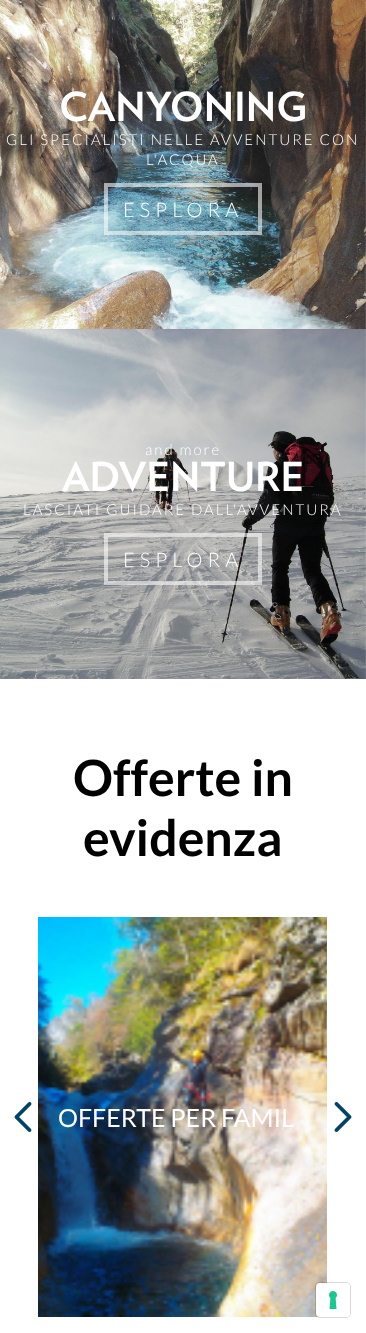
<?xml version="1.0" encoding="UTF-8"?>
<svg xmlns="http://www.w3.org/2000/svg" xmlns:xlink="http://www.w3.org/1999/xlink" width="366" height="1333">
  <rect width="100%" height="100%" fill="#ffffff" />
  <image x="0" y="0" width="366" height="329" xlink:href="image1.png" />
  <rect x="106" y="185" width="154" height="48" fill="none" stroke="#fafafa" stroke-opacity="0.6" stroke-width="4" />
  <image x="0" y="329" width="366" height="350" xlink:href="image2.png" />
  <rect x="106" y="535" width="154" height="48" fill="none" stroke="#fafafa" stroke-opacity="0.6" stroke-width="4" />
  <image x="14" y="1102" width="18" height="30" xlink:href="image3.png" />
  <image x="334" y="1102" width="18" height="30" xlink:href="image4.png" />
  <image x="38" y="917" width="289" height="400" xlink:href="image5.png" />
  <rect x="315.5" y="1282.5" width="35" height="35" rx="4.5" fill="none" stroke="#000000" stroke-opacity="0.15" />
  <rect x="316" y="1283" width="34" height="34" rx="4" fill="#ffffff" />
  <image x="329" y="1291" width="8" height="18" xlink:href="image6.png" />
  <text x="59" y="121" style="font-family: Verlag; font-size: 40px; font-weight: bold; fill: #ffffff">CANYONING</text>
  <text x="6" y="145" style="font-family: Lato; font-size: 15px; font-weight: 300; letter-spacing: 2px; fill: #ffffff">GLI SPECIALISTI NELLE AVVENTURE CON</text>
  <text x="146" y="165" style="font-family: Lato; font-size: 15px; font-weight: 300; letter-spacing: 2px; fill: #ffffff">L'ACQUA</text>
  <text x="123" y="217" style="font-family: Lato; font-size: 20px; font-weight: 300; letter-spacing: 5px; fill: #ffffff">ESPLORA</text>
  <text x="145" y="455" style="font-family: Lato; font-size: 15px; font-weight: 300; letter-spacing: 2px; fill: #ffffff">and more</text>
  <text x="62" y="491" style="font-family: Verlag; font-size: 40px; font-weight: bold; fill: #ffffff">ADVENTURE</text>
  <text x="23" y="515" style="font-family: Lato; font-size: 15px; font-weight: 300; letter-spacing: 2px; fill: #ffffff">LASCIATI GUIDARE DALL'AVVENTURA</text>
  <text x="123" y="567" style="font-family: Lato; font-size: 20px; font-weight: 300; letter-spacing: 5px; fill: #ffffff">ESPLORA</text>
  <text x="73" y="796" style="font-family: Lato; font-size: 50px; font-weight: bold; fill: #000000">Offerte in</text>
  <text x="83" y="856" style="font-family: Lato; font-size: 50px; font-weight: bold; fill: #000000">evidenza</text>
  <text x="58" y="1127" style="font-family: Lato; font-size: 25px; fill: #ffffff">OFFERTE PER FAMIL</text>
</svg>
